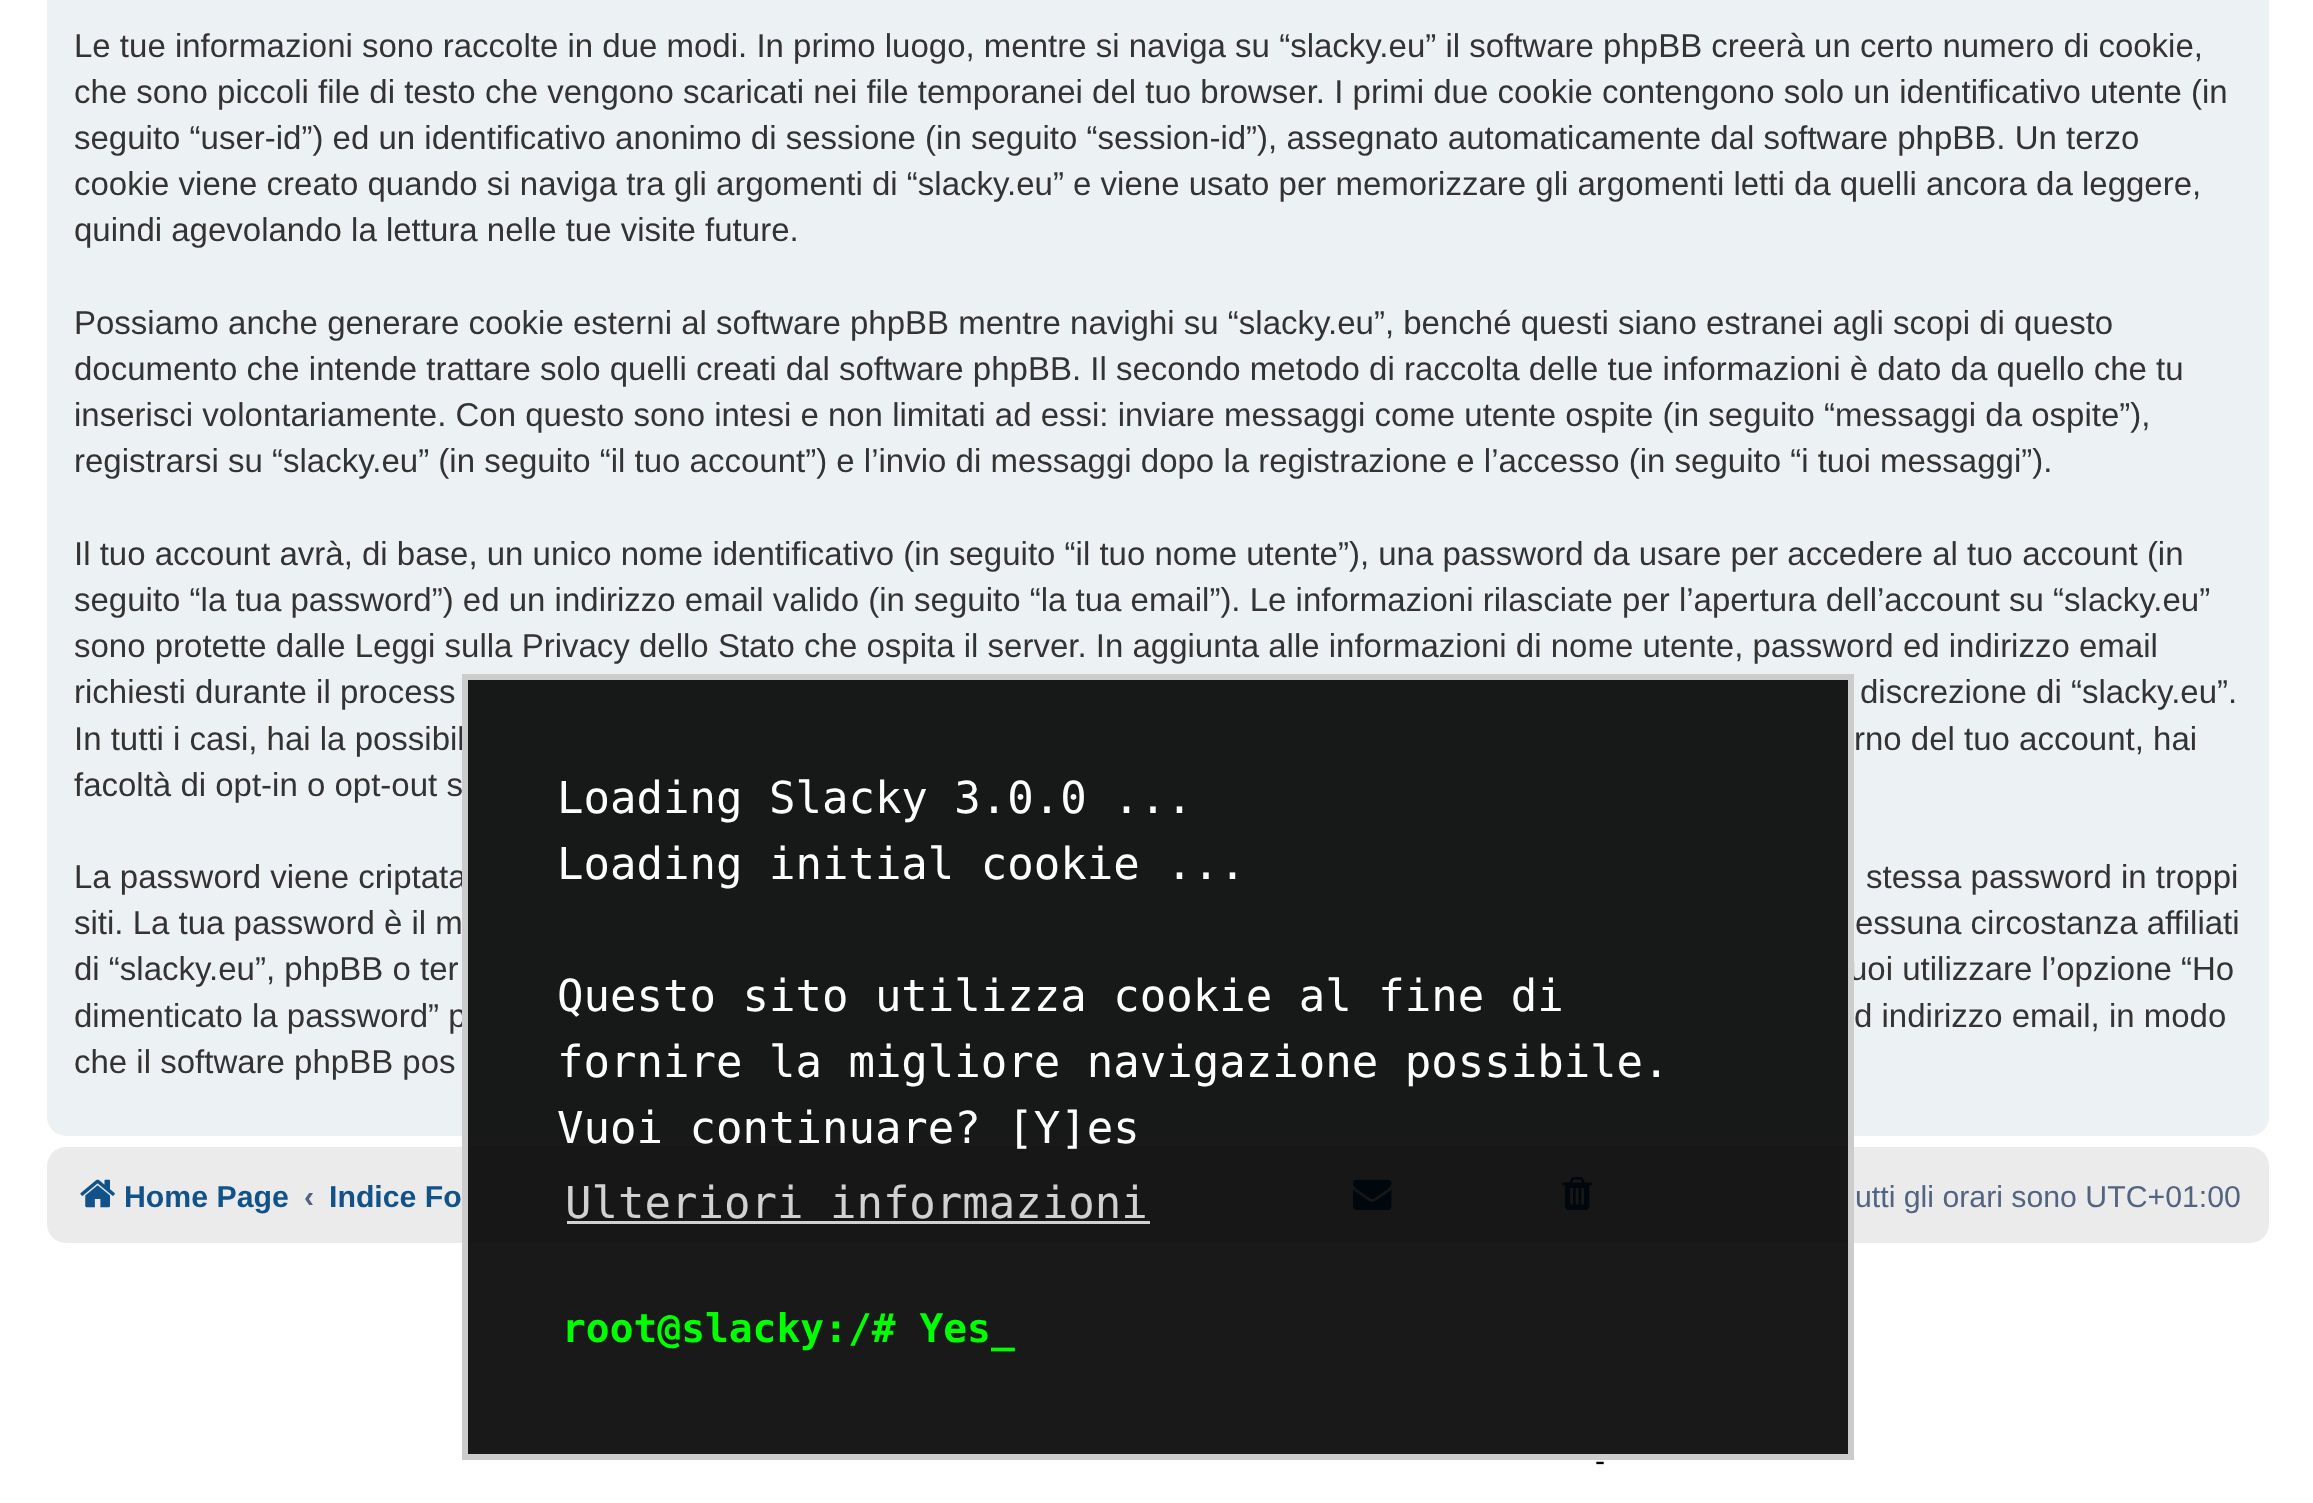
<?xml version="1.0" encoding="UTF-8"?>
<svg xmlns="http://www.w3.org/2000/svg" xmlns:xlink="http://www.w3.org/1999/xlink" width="2313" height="1503">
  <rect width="100%" height="100%" fill="#ffffff" />
  <rect x="47" y="-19" width="2222" height="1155" rx="19" fill="#ecf1f3" />
  <rect x="47" y="1147" width="2222" height="96" rx="19" fill="#ebebeb" />
  <image x="80" y="1179" width="35" height="29" xlink:href="image1.png" />
  <image x="1353" y="1179" width="39" height="31" xlink:href="image2.png" />
  <image x="1562" y="1177" width="31" height="33" xlink:href="image3.png" />
  <text x="74" y="57" style="font-family: Liberation Sans; font-size: 33px; fill: #333333">Le tue informazioni sono raccolte in due modi. In primo luogo, mentre si naviga su “slacky.eu” il software phpBB creerà un certo numero di cookie,</text>
  <text x="74" y="103" style="font-family: Liberation Sans; font-size: 33px; fill: #333333">che sono piccoli file di testo che vengono scaricati nei file temporanei del tuo browser. I primi due cookie contengono solo un identificativo utente (in</text>
  <text x="74" y="149" style="font-family: Liberation Sans; font-size: 33px; fill: #333333">seguito “user-id”) ed un identificativo anonimo di sessione (in seguito “session-id”), assegnato automaticamente dal software phpBB. Un terzo</text>
  <text x="74" y="195" style="font-family: Liberation Sans; font-size: 33px; fill: #333333">cookie viene creato quando si naviga tra gli argomenti di “slacky.eu” e viene usato per memorizzare gli argomenti letti da quelli ancora da leggere,</text>
  <text x="74" y="241" style="font-family: Liberation Sans; font-size: 33px; fill: #333333">quindi agevolando la lettura nelle tue visite future.</text>
  <text x="74" y="334" style="font-family: Liberation Sans; font-size: 33px; fill: #333333">Possiamo anche generare cookie esterni al software phpBB mentre navighi su “slacky.eu”, benché questi siano estranei agli scopi di questo</text>
  <text x="74" y="380" style="font-family: Liberation Sans; font-size: 33px; fill: #333333">documento che intende trattare solo quelli creati dal software phpBB. Il secondo metodo di raccolta delle tue informazioni è dato da quello che tu</text>
  <text x="74" y="426" style="font-family: Liberation Sans; font-size: 33px; fill: #333333">inserisci volontariamente. Con questo sono intesi e non limitati ad essi: inviare messaggi come utente ospite (in seguito “messaggi da ospite”),</text>
  <text x="74" y="472" style="font-family: Liberation Sans; font-size: 33px; fill: #333333">registrarsi su “slacky.eu” (in seguito “il tuo account”) e l’invio di messaggi dopo la registrazione e l’accesso (in seguito “i tuoi messaggi”).</text>
  <text x="74" y="565" style="font-family: Liberation Sans; font-size: 33px; fill: #333333">Il tuo account avrà, di base, un unico nome identificativo (in seguito “il tuo nome utente”), una password da usare per accedere al tuo account (in</text>
  <text x="74" y="611" style="font-family: Liberation Sans; font-size: 33px; fill: #333333">seguito “la tua password”) ed un indirizzo email valido (in seguito “la tua email”). Le informazioni rilasciate per l’apertura dell’account su “slacky.eu”</text>
  <text x="74" y="657" style="font-family: Liberation Sans; font-size: 33px; fill: #333333">sono protette dalle Leggi sulla Privacy dello Stato che ospita il server. In aggiunta alle informazioni di nome utente, password ed indirizzo email</text>
  <text x="74" y="703" style="font-family: Liberation Sans; font-size: 33px; fill: #333333">richiesti durante il process</text>
  <text x="1860" y="703" style="font-family: Liberation Sans; font-size: 33px; fill: #333333">discrezione di “slacky.eu”.</text>
  <text x="74" y="750" style="font-family: Liberation Sans; font-size: 33px; fill: #333333">In tutti i casi, hai la possibil</text>
  <text x="1854" y="750" style="font-family: Liberation Sans; font-size: 33px; fill: #333333">rno del tuo account, hai</text>
  <text x="74" y="796" style="font-family: Liberation Sans; font-size: 33px; fill: #333333">facoltà di opt-in o opt-out s</text>
  <text x="74" y="888" style="font-family: Liberation Sans; font-size: 33px; fill: #333333">La password viene criptata</text>
  <text x="1866" y="888" style="font-family: Liberation Sans; font-size: 33px; fill: #333333">stessa password in troppi</text>
  <text x="74" y="934" style="font-family: Liberation Sans; font-size: 33px; fill: #333333">siti. La tua password è il m</text>
  <text x="1855" y="934" style="font-family: Liberation Sans; font-size: 33px; fill: #333333">essuna circostanza affiliati</text>
  <text x="74" y="980" style="font-family: Liberation Sans; font-size: 33px; fill: #333333">di “slacky.eu”, phpBB o ter</text>
  <text x="1849" y="980" style="font-family: Liberation Sans; font-size: 33px; fill: #333333">uoi utilizzare l’opzione “Ho</text>
  <text x="74" y="1027" style="font-family: Liberation Sans; font-size: 33px; fill: #333333">dimenticato la password” p</text>
  <text x="1854" y="1027" style="font-family: Liberation Sans; font-size: 33px; fill: #333333">d indirizzo email, in modo</text>
  <text x="74" y="1073" style="font-family: Liberation Sans; font-size: 33px; fill: #333333">che il software phpBB pos</text>
  <text x="124" y="1207" style="font-family: Liberation Sans; font-size: 30.25px; font-weight: bold; fill: #105289">Home Page</text>
  <text x="304" y="1207" style="font-family: Liberation Sans; font-size: 30.25px; font-weight: bold; fill: #536482">‹</text>
  <text x="329" y="1207" style="font-family: Liberation Sans; font-size: 30.25px; font-weight: bold; fill: #105289">Indice Fo</text>
  <text x="1855" y="1207" style="font-family: Liberation Sans; font-size: 30.25px; fill: #536482">utti gli orari sono UTC+01:00</text>
  <rect x="465" y="677" width="1386" height="780" fill="#000000" fill-opacity="0.9" stroke="#cccccc" stroke-width="6" />
  <text x="557" y="813" style="font-family: DejaVu Sans Mono; font-size: 44px; fill: #ffffff">Loading Slacky 3.0.0 ...</text>
  <text x="557" y="879" style="font-family: DejaVu Sans Mono; font-size: 44px; fill: #ffffff">Loading initial cookie ...</text>
  <text x="557" y="1011" style="font-family: DejaVu Sans Mono; font-size: 44px; fill: #ffffff">Questo sito utilizza cookie al fine di</text>
  <text x="557" y="1077" style="font-family: DejaVu Sans Mono; font-size: 44px; fill: #ffffff">fornire la migliore navigazione possibile.</text>
  <text x="557" y="1143" style="font-family: DejaVu Sans Mono; font-size: 44px; fill: #ffffff">Vuoi continuare? [Y]es</text>
  <text x="565" y="1218" style="font-family: DejaVu Sans Mono; font-size: 44px; fill: #d1d1d1">Ulteriori informazioni</text>
  <rect x="567" y="1221" width="583" height="3" fill="#d1d1d1" />
  <text x="562" y="1342" style="font-family: DejaVu Sans Mono; font-size: 39.6px; font-weight: bold; fill: #00ff00">root@slacky:/# Yes_</text>
  <text x="1595" y="1471" style="font-family: Liberation Sans; font-size: 30.25px; fill: #000000">-</text>
</svg>
